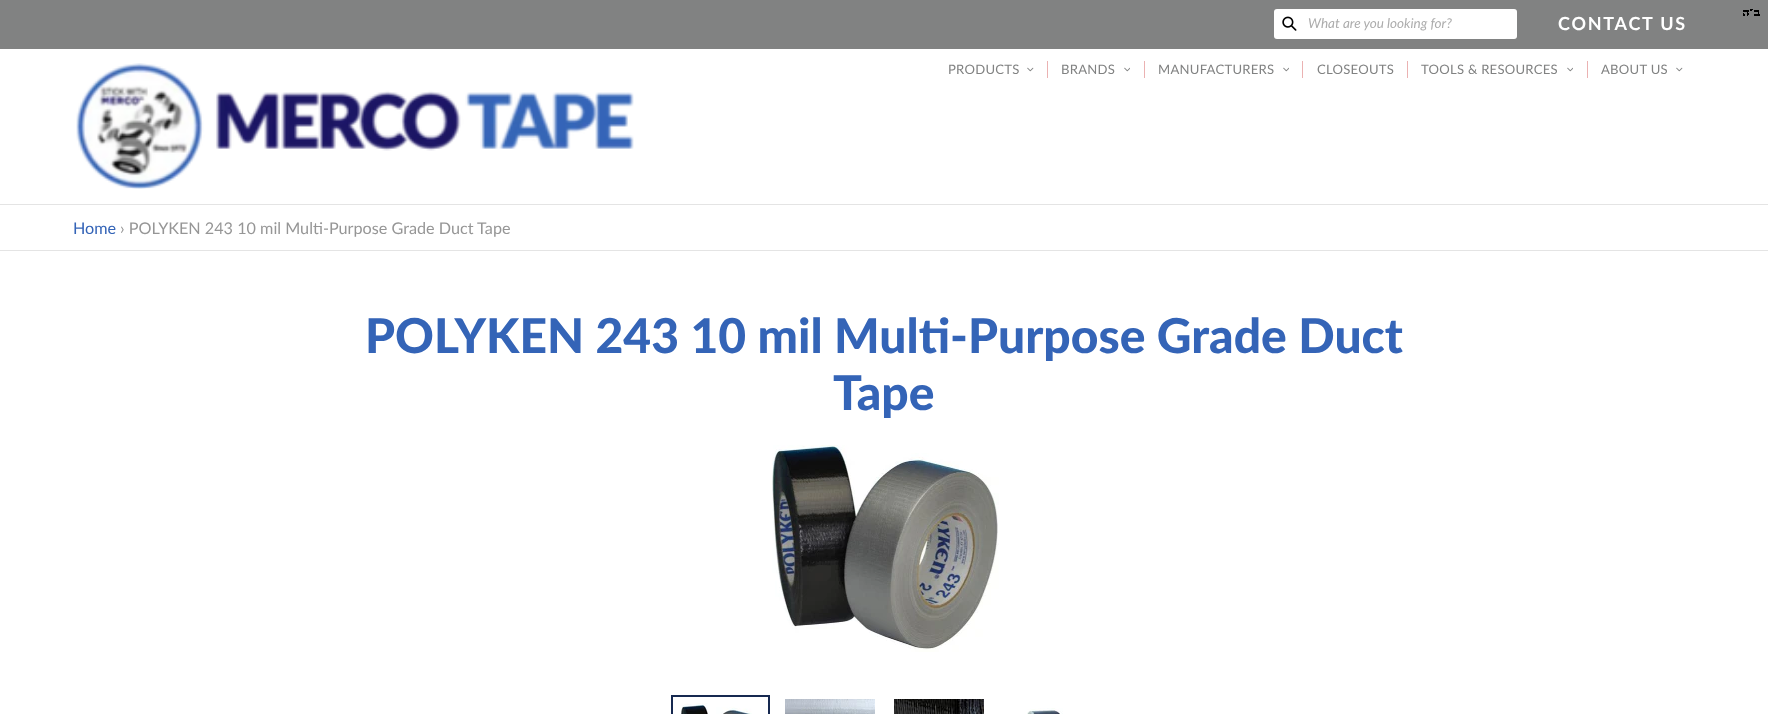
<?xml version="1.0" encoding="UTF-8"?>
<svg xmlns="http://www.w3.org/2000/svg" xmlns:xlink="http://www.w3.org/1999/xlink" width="1768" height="714">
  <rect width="100%" height="100%" fill="#ffffff" />
  <rect width="1768" height="49" fill="#818282" />
  <image x="1743" y="9" width="17" height="7" xlink:href="image1.png" />
  <rect x="1274" y="9" width="243" height="30" rx="3" fill="#ffffff" />
  <image x="1282" y="16" width="15" height="15" xlink:href="image2.png" />
  <rect y="204" width="1768" height="1" fill="#e4e4e4" />
  <image x="76" y="63" width="558" height="126" xlink:href="image3.png" />
  <image x="1027" y="67" width="7" height="5" xlink:href="image4.png" />
  <rect x="1047" y="61" width="1" height="17" fill="#ebb2b2" />
  <image x="1124" y="67" width="6" height="5" xlink:href="image5.png" />
  <rect x="1144" y="61" width="1" height="17" fill="#ebb2b2" />
  <image x="1283" y="67" width="6" height="5" xlink:href="image5.png" />
  <rect x="1302" y="61" width="1" height="17" fill="#ebb2b2" />
  <rect x="1407" y="61" width="1" height="17" fill="#ebb2b2" />
  <image x="1567" y="67" width="6" height="5" xlink:href="image5.png" />
  <rect x="1587" y="61" width="1" height="17" fill="#ebb2b2" />
  <image x="1676" y="67" width="7" height="5" xlink:href="image4.png" />
  <rect y="250" width="1768" height="1" fill="#e4e4e4" />
  <image x="772" y="445" width="227" height="207" xlink:href="image6.png" />
  <rect x="672" y="696" width="97" height="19" fill="none" stroke="#162950" stroke-width="2" />
  <image x="681" y="703" width="71" height="11" xlink:href="image7.png" />
  <image x="785" y="699" width="90" height="15" xlink:href="image8.png" />
  <image x="894" y="699" width="90" height="15" xlink:href="image9.png" />
  <image x="1027" y="708" width="36" height="6" xlink:href="image10.png" />
  <text x="1308" y="28" style="font-family: Lato; font-size: 13.5px; font-style: italic; fill: #acacac">What are you looking for?</text>
  <text x="1558" y="30" style="font-family: Lato; font-size: 18px; font-weight: bold; letter-spacing: 1.75px; fill: #ffffff">CONTACT US</text>
  <text x="948" y="74" style="font-family: Lato; font-size: 13.1px; letter-spacing: 0.25px; fill: #818282">PRODUCTS</text>
  <text x="1061" y="74" style="font-family: Lato; font-size: 13.1px; letter-spacing: 0.25px; fill: #818282">BRANDS</text>
  <text x="1158" y="74" style="font-family: Lato; font-size: 13.1px; letter-spacing: 0.25px; fill: #818282">MANUFACTURERS</text>
  <text x="1317" y="74" style="font-family: Lato; font-size: 13.1px; letter-spacing: 0.25px; fill: #818282">CLOSEOUTS</text>
  <text x="1421" y="74" style="font-family: Lato; font-size: 13.1px; letter-spacing: 0.25px; fill: #818282">TOOLS &amp; RESOURCES</text>
  <text x="1601" y="74" style="font-family: Lato; font-size: 13.1px; letter-spacing: 0.25px; fill: #818282">ABOUT US</text>
  <text x="73" y="234" style="font-family: Lato; font-size: 16.2px; fill: #3464b7">Home</text>
  <text x="120" y="234" style="font-family: Lato; font-size: 16.2px; fill: #969696">› POLYKEN 243 10 mil Multi-Purpose Grade Duct Tape</text>
  <text x="365" y="353" style="font-family: Lato; font-size: 48px; font-weight: 900; fill: #3464b7">POLYKEN 243 10 mil Multi-Purpose Grade Duct</text>
  <text x="833" y="410" style="font-family: Lato; font-size: 48px; font-weight: 900; fill: #3464b7">Tape</text>
</svg>
